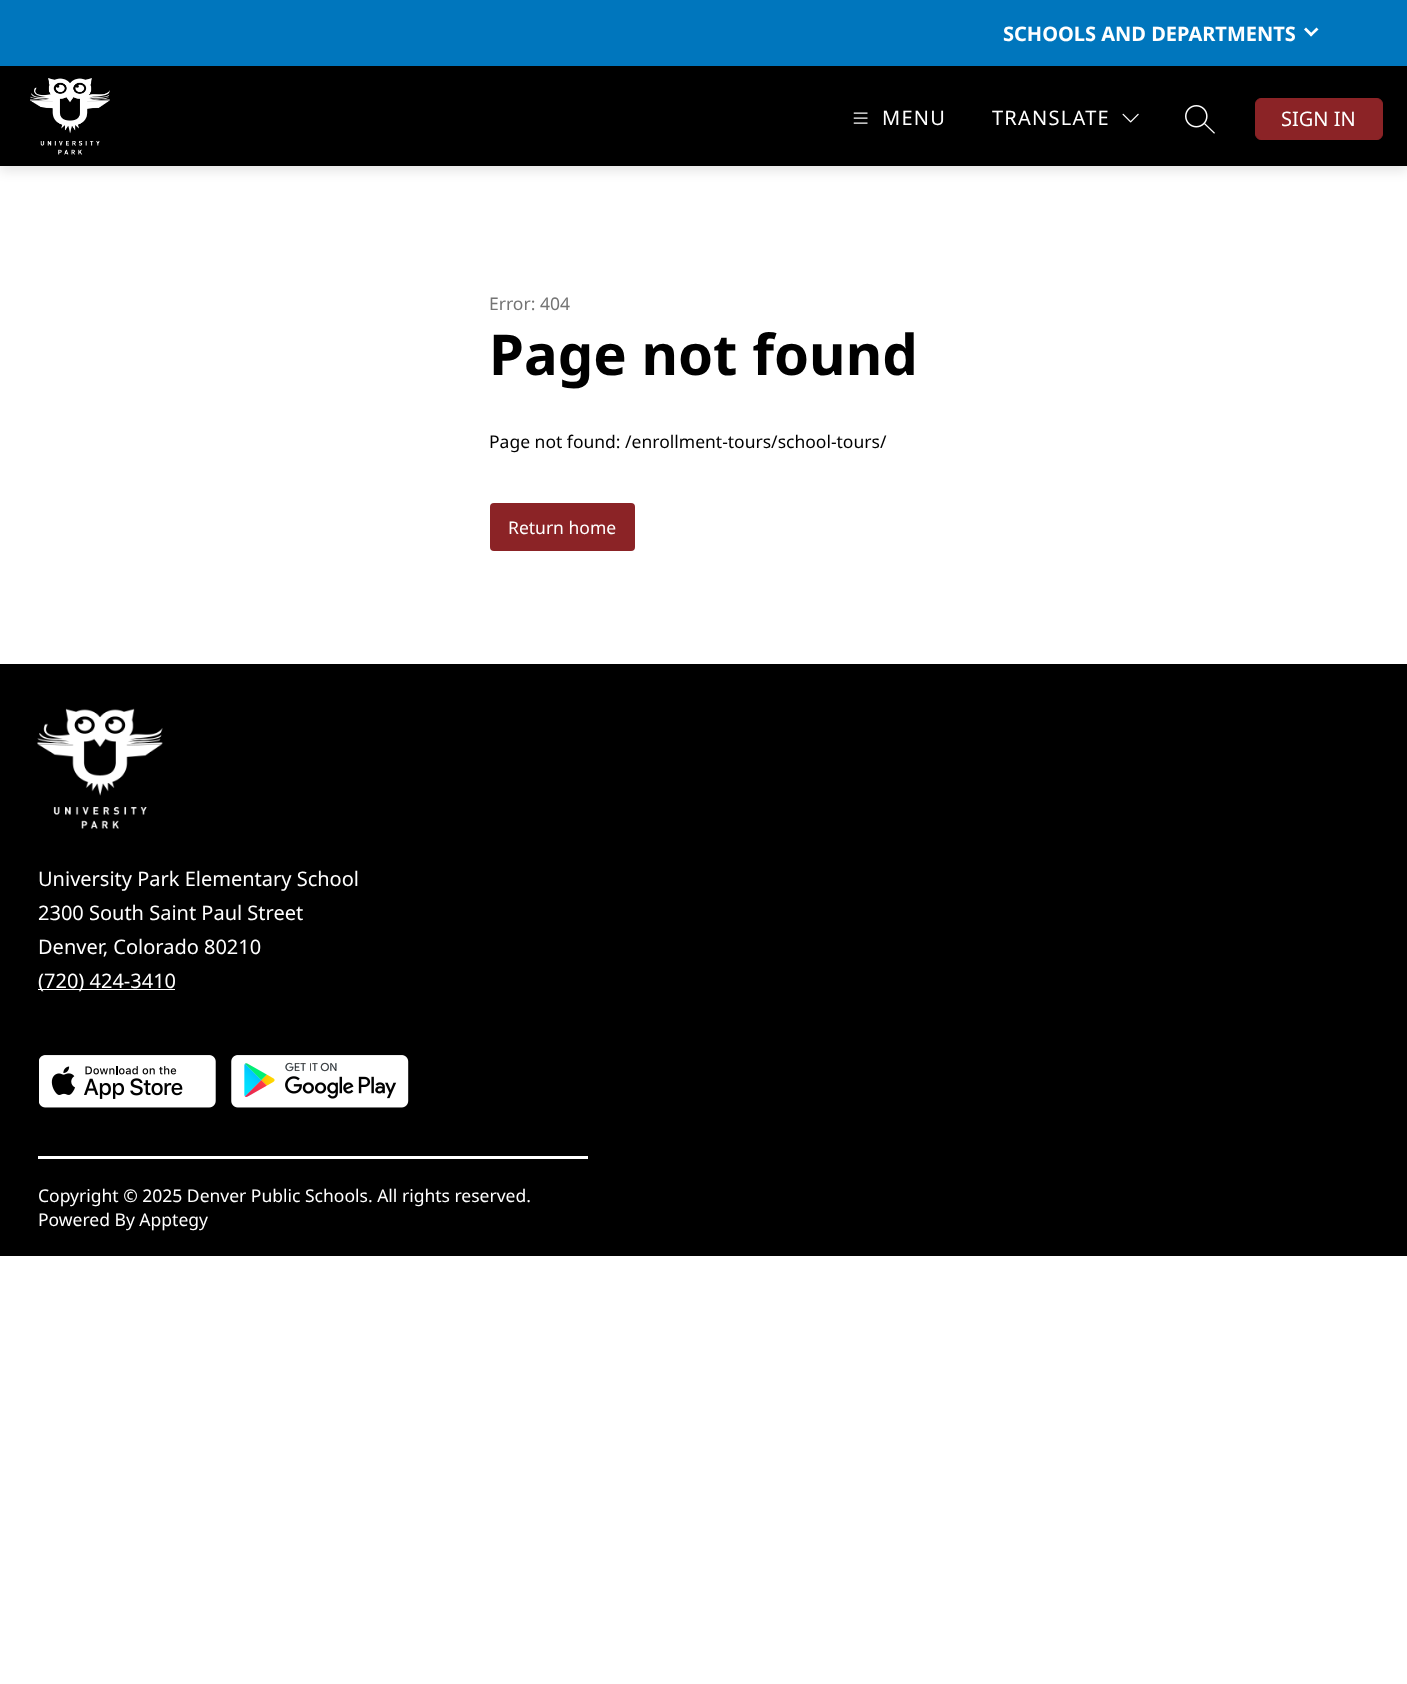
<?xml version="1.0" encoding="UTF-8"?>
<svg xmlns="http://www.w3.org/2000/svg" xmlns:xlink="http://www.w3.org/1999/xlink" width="1407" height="1684">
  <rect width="100%" height="100%" fill="#ffffff" />
  <rect y="71" width="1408" height="100" fill="#000000" fill-opacity="0.1" filter="blur(6px)" />
  <rect width="1407" height="66" fill="#0076bd" />
  <path d="M 1316.5 27.5 l 2 2 l -7.5 7 l -1.5 -2 z" fill="#ffffff" />
  <path d="M 1306 27.5 l 7 7 l -2 2 l -7 -7 z" fill="#ffffff" />
  <rect y="66" width="1407" height="100" fill="#000000" />
  <image x="30" y="78" width="80" height="77" xlink:href="image1.png" />
  <image x="853" y="112" width="15" height="12" xlink:href="image2.png" />
  <image x="1122" y="113" width="17" height="10" xlink:href="image3.png" />
  <image x="1185" y="105" width="30" height="29" xlink:href="image4.png" />
  <rect x="1255.5" y="98.5" width="127" height="41" rx="5.5" fill="#8b2326" stroke="#8b2326" />
  <rect x="490" y="503" width="145" height="48" rx="4" fill="#8b2326" />
  <rect y="664" width="1407" height="592" fill="#000000" />
  <image x="37" y="708" width="126" height="121" xlink:href="image5.png" />
  <rect x="38" y="989" width="137" height="1" fill="#ffffff" />
  <image x="39" y="1055" width="177" height="53" xlink:href="image6.png" />
  <image x="231" y="1055" width="178" height="53" xlink:href="image7.png" />
  <rect x="38" y="1156" width="550" height="3" fill="#ffffff" />
  <text x="1003" y="41" style="font-family: Noto Sans; font-size: 20px; font-weight: bold; fill: #ffffff">SCHOOLS AND DEPARTMENTS</text>
  <text x="882" y="125" style="font-family: Noto Sans; font-size: 20px; letter-spacing: 1.25px; fill: #ffffff">MENU</text>
  <text x="992" y="125" style="font-family: Noto Sans; font-size: 20px; letter-spacing: 1.25px; fill: #ffffff">TRANSLATE</text>
  <text x="1281" y="126" style="font-family: Noto Sans; font-size: 20px; fill: #ffffff">SIGN IN</text>
  <text x="489" y="310" style="font-family: Noto Sans; font-size: 17.5px; fill: #747474">Error: 404</text>
  <text x="489" y="375" style="font-family: Noto Sans; font-size: 56.25px; font-weight: bold; fill: #000000">Page not found</text>
  <text x="489" y="448" style="font-family: Noto Sans; font-size: 17.5px; fill: #000000">Page not found: /enrollment-tours/school-tours/</text>
  <text x="508" y="534" style="font-family: Noto Sans; font-size: 17.5px; fill: #ffffff">Return home</text>
  <text x="38" y="886" style="font-family: Noto Sans; font-size: 20px; fill: #ffffff">University Park Elementary School</text>
  <text x="38" y="920" style="font-family: Noto Sans; font-size: 20px; fill: #ffffff">2300 South Saint Paul Street</text>
  <text x="38" y="954" style="font-family: Noto Sans; font-size: 20px; fill: #ffffff">Denver, Colorado 80210</text>
  <text x="38" y="988" style="font-family: Noto Sans; font-size: 20px; fill: #ffffff">(720) 424-3410</text>
  <text x="38" y="1202" style="font-family: Noto Sans; font-size: 17.5px; fill: #ffffff">Copyright © 2025 Denver Public Schools. All rights reserved.</text>
  <text x="38" y="1226" style="font-family: Noto Sans; font-size: 17.5px; fill: #ffffff">Powered By Apptegy</text>
</svg>
